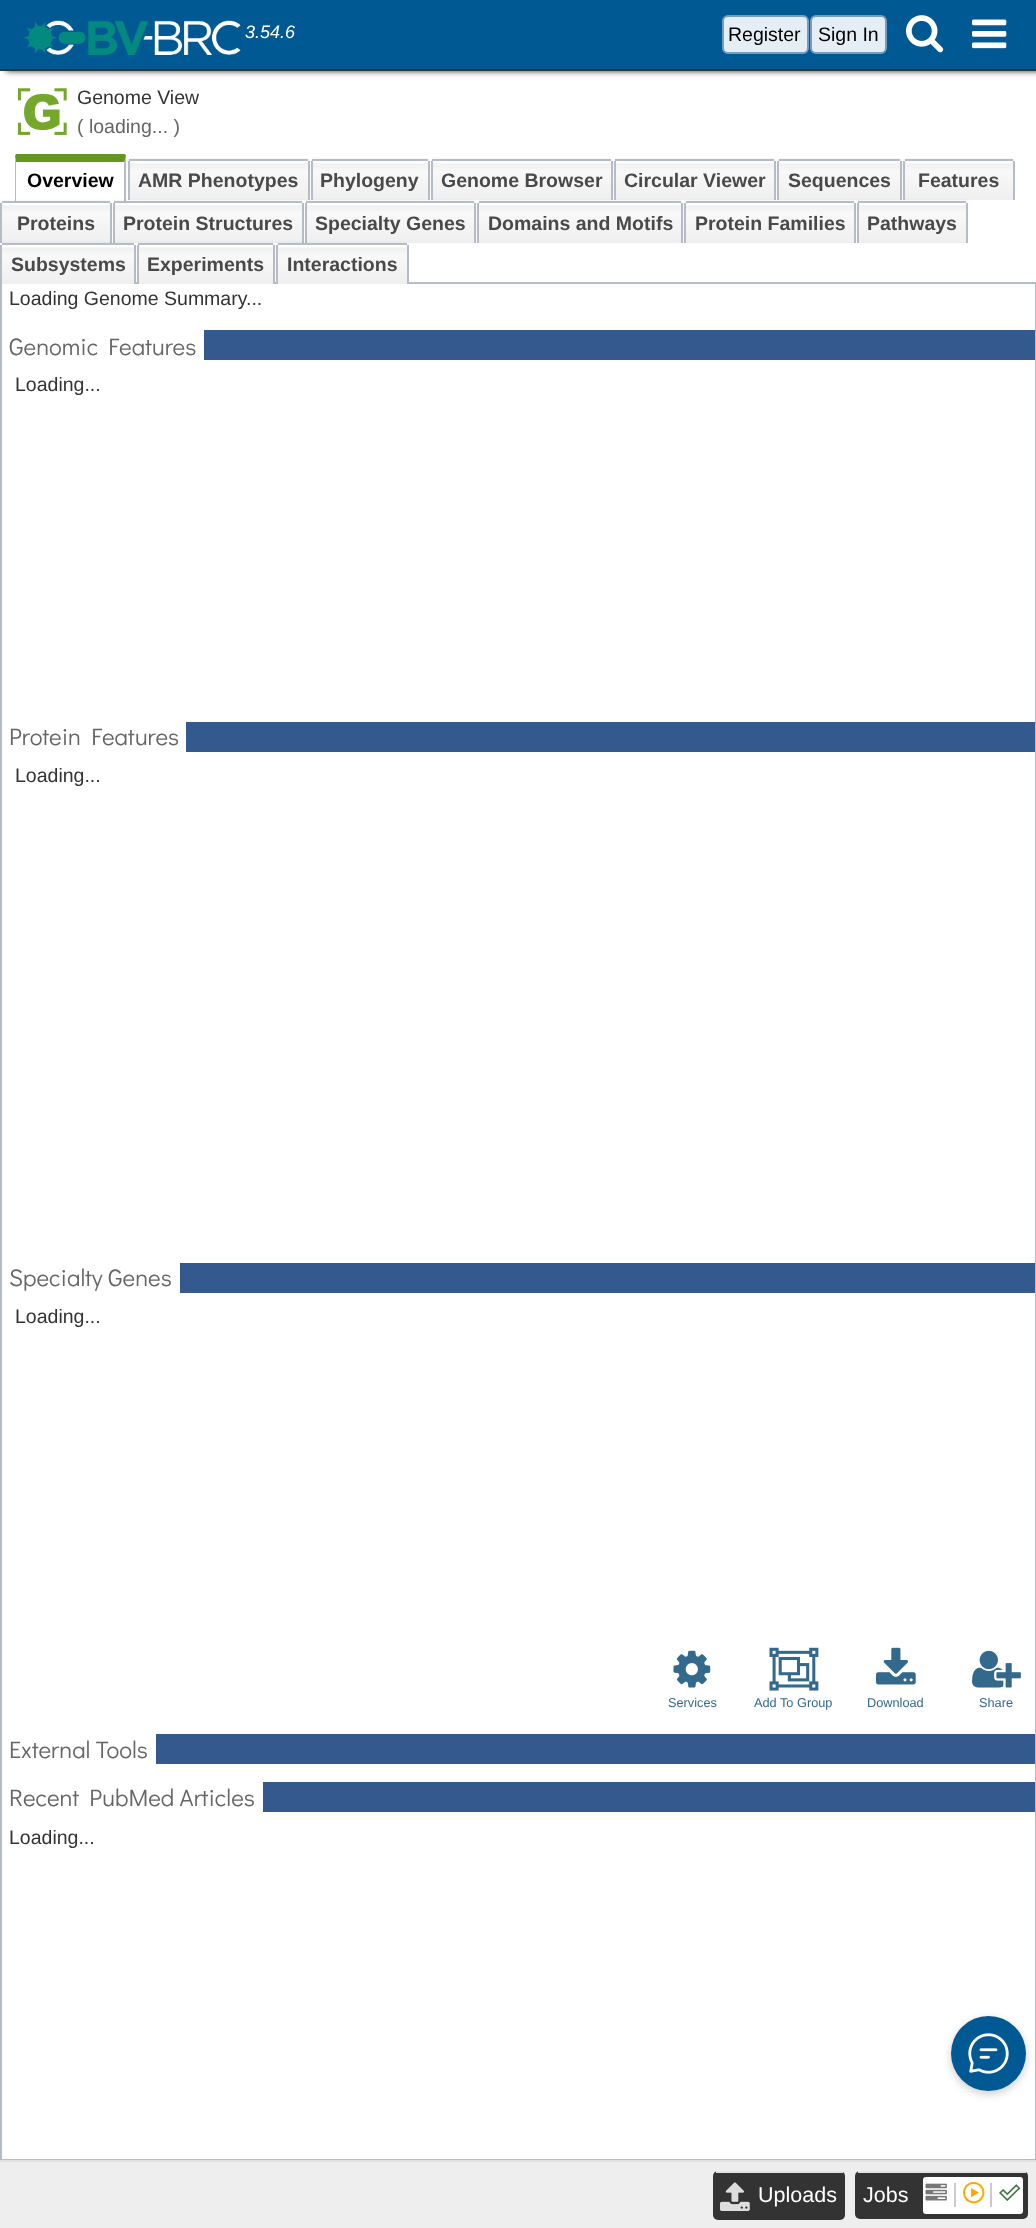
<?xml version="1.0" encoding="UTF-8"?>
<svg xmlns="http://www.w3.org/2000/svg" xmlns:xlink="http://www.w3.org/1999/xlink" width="1036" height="2228">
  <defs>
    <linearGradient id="g1" gradientUnits="userSpaceOnUse" x1="218" y1="161" x2="218" y2="200"><stop offset="0" stop-color="#ffffff" /><stop offset="0.04" stop-color="#ffffff" /><stop offset="0.08" stop-color="#ffffff" stop-opacity="0.1" /><stop offset="0.27" stop-color="#ffffff" stop-opacity="0.6" /><stop offset="1" stop-color="#ffffff" stop-opacity="0" /></linearGradient>
    <linearGradient id="g2" gradientUnits="userSpaceOnUse" x1="370" y1="161" x2="370" y2="200"><stop offset="0" stop-color="#ffffff" /><stop offset="0.04" stop-color="#ffffff" /><stop offset="0.08" stop-color="#ffffff" stop-opacity="0.1" /><stop offset="0.27" stop-color="#ffffff" stop-opacity="0.6" /><stop offset="1" stop-color="#ffffff" stop-opacity="0" /></linearGradient>
    <linearGradient id="g3" gradientUnits="userSpaceOnUse" x1="521" y1="161" x2="521" y2="200"><stop offset="0" stop-color="#ffffff" /><stop offset="0.04" stop-color="#ffffff" /><stop offset="0.08" stop-color="#ffffff" stop-opacity="0.1" /><stop offset="0.27" stop-color="#ffffff" stop-opacity="0.6" /><stop offset="1" stop-color="#ffffff" stop-opacity="0" /></linearGradient>
    <linearGradient id="g4" gradientUnits="userSpaceOnUse" x1="695" y1="161" x2="695" y2="200"><stop offset="0" stop-color="#ffffff" /><stop offset="0.04" stop-color="#ffffff" /><stop offset="0.08" stop-color="#ffffff" stop-opacity="0.1" /><stop offset="0.27" stop-color="#ffffff" stop-opacity="0.6" /><stop offset="1" stop-color="#ffffff" stop-opacity="0" /></linearGradient>
    <linearGradient id="g5" gradientUnits="userSpaceOnUse" x1="839" y1="161" x2="839" y2="200"><stop offset="0" stop-color="#ffffff" /><stop offset="0.04" stop-color="#ffffff" /><stop offset="0.08" stop-color="#ffffff" stop-opacity="0.1" /><stop offset="0.27" stop-color="#ffffff" stop-opacity="0.6" /><stop offset="1" stop-color="#ffffff" stop-opacity="0" /></linearGradient>
    <linearGradient id="g6" gradientUnits="userSpaceOnUse" x1="959" y1="161" x2="959" y2="200"><stop offset="0" stop-color="#ffffff" /><stop offset="0.04" stop-color="#ffffff" /><stop offset="0.08" stop-color="#ffffff" stop-opacity="0.1" /><stop offset="0.27" stop-color="#ffffff" stop-opacity="0.6" /><stop offset="1" stop-color="#ffffff" stop-opacity="0" /></linearGradient>
    <linearGradient id="g7" gradientUnits="userSpaceOnUse" x1="56" y1="203" x2="56" y2="243"><stop offset="0" stop-color="#ffffff" /><stop offset="0.04" stop-color="#ffffff" /><stop offset="0.07" stop-color="#ffffff" stop-opacity="0.1" /><stop offset="0.26" stop-color="#ffffff" stop-opacity="0.6" /><stop offset="1" stop-color="#ffffff" stop-opacity="0" /></linearGradient>
    <linearGradient id="g8" gradientUnits="userSpaceOnUse" x1="208" y1="203" x2="208" y2="243"><stop offset="0" stop-color="#ffffff" /><stop offset="0.04" stop-color="#ffffff" /><stop offset="0.07" stop-color="#ffffff" stop-opacity="0.1" /><stop offset="0.26" stop-color="#ffffff" stop-opacity="0.6" /><stop offset="1" stop-color="#ffffff" stop-opacity="0" /></linearGradient>
    <linearGradient id="g9" gradientUnits="userSpaceOnUse" x1="390" y1="203" x2="390" y2="243"><stop offset="0" stop-color="#ffffff" /><stop offset="0.04" stop-color="#ffffff" /><stop offset="0.07" stop-color="#ffffff" stop-opacity="0.1" /><stop offset="0.26" stop-color="#ffffff" stop-opacity="0.6" /><stop offset="1" stop-color="#ffffff" stop-opacity="0" /></linearGradient>
    <linearGradient id="g10" gradientUnits="userSpaceOnUse" x1="580" y1="203" x2="580" y2="243"><stop offset="0" stop-color="#ffffff" /><stop offset="0.04" stop-color="#ffffff" /><stop offset="0.07" stop-color="#ffffff" stop-opacity="0.1" /><stop offset="0.26" stop-color="#ffffff" stop-opacity="0.6" /><stop offset="1" stop-color="#ffffff" stop-opacity="0" /></linearGradient>
    <linearGradient id="g11" gradientUnits="userSpaceOnUse" x1="770" y1="203" x2="770" y2="243"><stop offset="0" stop-color="#ffffff" /><stop offset="0.04" stop-color="#ffffff" /><stop offset="0.07" stop-color="#ffffff" stop-opacity="0.1" /><stop offset="0.26" stop-color="#ffffff" stop-opacity="0.6" /><stop offset="1" stop-color="#ffffff" stop-opacity="0" /></linearGradient>
    <linearGradient id="g12" gradientUnits="userSpaceOnUse" x1="912" y1="203" x2="912" y2="243"><stop offset="0" stop-color="#ffffff" /><stop offset="0.04" stop-color="#ffffff" /><stop offset="0.07" stop-color="#ffffff" stop-opacity="0.1" /><stop offset="0.26" stop-color="#ffffff" stop-opacity="0.6" /><stop offset="1" stop-color="#ffffff" stop-opacity="0" /></linearGradient>
    <linearGradient id="g13" gradientUnits="userSpaceOnUse" x1="68" y1="245" x2="68" y2="284"><stop offset="0" stop-color="#ffffff" /><stop offset="0.04" stop-color="#ffffff" /><stop offset="0.08" stop-color="#ffffff" stop-opacity="0.1" /><stop offset="0.27" stop-color="#ffffff" stop-opacity="0.6" /><stop offset="1" stop-color="#ffffff" stop-opacity="0" /></linearGradient>
    <linearGradient id="g14" gradientUnits="userSpaceOnUse" x1="206" y1="245" x2="206" y2="284"><stop offset="0" stop-color="#ffffff" /><stop offset="0.04" stop-color="#ffffff" /><stop offset="0.08" stop-color="#ffffff" stop-opacity="0.1" /><stop offset="0.27" stop-color="#ffffff" stop-opacity="0.6" /><stop offset="1" stop-color="#ffffff" stop-opacity="0" /></linearGradient>
    <linearGradient id="g15" gradientUnits="userSpaceOnUse" x1="342" y1="245" x2="342" y2="284"><stop offset="0" stop-color="#ffffff" /><stop offset="0.04" stop-color="#ffffff" /><stop offset="0.08" stop-color="#ffffff" stop-opacity="0.1" /><stop offset="0.27" stop-color="#ffffff" stop-opacity="0.6" /><stop offset="1" stop-color="#ffffff" stop-opacity="0" /></linearGradient>
  </defs>
  <rect width="100%" height="100%" fill="#ffffff" />
  <rect x="6" width="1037" height="71" fill="#333333" filter="blur(3px)" />
  <rect y="69" width="1036" height="2" fill="#333333" />
  <rect width="1036" height="69" fill="#015994" />
  <image x="23" y="20" width="218" height="35" xlink:href="image1.png" />
  <rect x="723" y="16" width="85" height="37" rx="5" fill="#e5eef4" stroke="#759dc0" stroke-width="2" />
  <rect x="811" y="16" width="75" height="37" rx="5" fill="#e5eef4" stroke="#759dc0" stroke-width="2" />
  <image x="906" y="15" width="38" height="38" xlink:href="image2.png" />
  <image x="972" y="19" width="35" height="30" xlink:href="image3.png" />
  <image x="18" y="88" width="49" height="47" xlink:href="image4.png" />
  <rect x="136" y="282" width="900" height="2" fill="#b5bcc7" />
  <path d="M 15 156 l 1 -2 h 109 l 1 2 l -2 8 v -2 h -108 z" fill="#629821" />
  <path d="M 124 201 h 2 v -45 l -2 8 z" fill="#b5bcc7" />
  <path d="M 15 201 h 1 v -39 l -1 -6 v 2 z" fill="#b5bcc7" />
  <rect x="128" y="158" width="181" height="40" rx="3" fill="#000000" fill-opacity="0.04" filter="blur(1px)" />
  <path d="M 130.5 161 h 176 c 1 0 1.5 0.5 1.5 1.5 v 37.5 h -179 v -37.5 c 0 -1 0.5 -1.5 1.5 -1.5 z" fill="#efefef" />
  <path d="M 130.5 161 h 176 c 1 0 1.5 0.5 1.5 1.5 v 37.5 h -179 v -37.5 c 0 -1 0.5 -1.5 1.5 -1.5 z" fill="url(#g1)" />
  <rect x="129" y="159" width="179" height="2" fill="#b5bcc7" />
  <rect x="308" y="161" width="2" height="39" fill="#b5bcc7" />
  <rect x="128" y="161" width="2" height="39" fill="#b5bcc7" />
  <rect x="311" y="158" width="118" height="40" rx="3" fill="#000000" fill-opacity="0.04" filter="blur(1px)" />
  <path d="M 313.5 161 h 113 c 1 0 1.5 0.5 1.5 1.5 v 37.5 h -116 v -37.5 c 0 -1 0.5 -1.5 1.5 -1.5 z" fill="#efefef" />
  <path d="M 313.5 161 h 113 c 1 0 1.5 0.5 1.5 1.5 v 37.5 h -116 v -37.5 c 0 -1 0.5 -1.5 1.5 -1.5 z" fill="url(#g2)" />
  <rect x="312" y="159" width="116" height="2" fill="#b5bcc7" />
  <rect x="428" y="161" width="2" height="39" fill="#b5bcc7" />
  <rect x="311" y="161" width="2" height="39" fill="#b5bcc7" />
  <rect x="431" y="158" width="181" height="40" rx="3" fill="#000000" fill-opacity="0.04" filter="blur(1px)" />
  <path d="M 433.5 161 h 176 c 1 0 1.5 0.5 1.5 1.5 v 37.5 h -179 v -37.5 c 0 -1 0.5 -1.5 1.5 -1.5 z" fill="#efefef" />
  <path d="M 433.5 161 h 176 c 1 0 1.5 0.5 1.5 1.5 v 37.5 h -179 v -37.5 c 0 -1 0.5 -1.5 1.5 -1.5 z" fill="url(#g3)" />
  <rect x="432" y="159" width="179" height="2" fill="#b5bcc7" />
  <rect x="611" y="161" width="2" height="39" fill="#b5bcc7" />
  <rect x="431" y="161" width="2" height="39" fill="#b5bcc7" />
  <rect x="614" y="158" width="162" height="40" rx="3" fill="#000000" fill-opacity="0.04" filter="blur(1px)" />
  <path d="M 616.5 161 h 156 c 1 0 1.5 0.5 1.5 1.5 v 37.5 h -159 v -37.5 c 0 -1 0.5 -1.5 1.5 -1.5 z" fill="#efefef" />
  <path d="M 616.5 161 h 156 c 1 0 1.5 0.5 1.5 1.5 v 37.5 h -159 v -37.5 c 0 -1 0.5 -1.5 1.5 -1.5 z" fill="url(#g4)" />
  <rect x="615" y="159" width="159" height="2" fill="#b5bcc7" />
  <rect x="774" y="161" width="2" height="39" fill="#b5bcc7" />
  <rect x="614" y="161" width="2" height="39" fill="#b5bcc7" />
  <rect x="777" y="158" width="125" height="40" rx="3" fill="#000000" fill-opacity="0.04" filter="blur(1px)" />
  <path d="M 780.5 161 h 118 c 1 0 1.5 0.5 1.5 1.5 v 37.5 h -121 v -37.5 c 0 -1 0.5 -1.5 1.5 -1.5 z" fill="#efefef" />
  <path d="M 780.5 161 h 118 c 1 0 1.5 0.5 1.5 1.5 v 37.5 h -121 v -37.5 c 0 -1 0.5 -1.5 1.5 -1.5 z" fill="url(#g5)" />
  <rect x="779" y="159" width="121" height="2" fill="#b5bcc7" />
  <rect x="900" y="161" width="2" height="39" fill="#b5bcc7" />
  <rect x="777" y="161" width="2" height="39" fill="#b5bcc7" />
  <rect x="903" y="158" width="111" height="40" rx="3" fill="#000000" fill-opacity="0.04" filter="blur(1px)" />
  <path d="M 906.5 161 h 105 c 1 0 1.5 0.5 1.5 1.5 v 37.5 h -108 v -37.5 c 0 -1 0.5 -1.5 1.5 -1.5 z" fill="#efefef" />
  <path d="M 906.5 161 h 105 c 1 0 1.5 0.5 1.5 1.5 v 37.5 h -108 v -37.5 c 0 -1 0.5 -1.5 1.5 -1.5 z" fill="url(#g6)" />
  <rect x="905" y="159" width="108" height="2" fill="#b5bcc7" />
  <rect x="1013" y="161" width="2" height="39" fill="#b5bcc7" />
  <rect x="903" y="161" width="2" height="39" fill="#b5bcc7" />
  <rect y="200" width="111" height="42" rx="3" fill="#000000" fill-opacity="0.04" filter="blur(1px)" />
  <path d="M 3.5 203 h 105 c 1 0 1.5 0.5 1.5 1.5 v 38.5 h -108 v -38.5 c 0 -1 0.5 -1.5 1.5 -1.5 z" fill="#efefef" />
  <path d="M 3.5 203 h 105 c 1 0 1.5 0.5 1.5 1.5 v 38.5 h -108 v -38.5 c 0 -1 0.5 -1.5 1.5 -1.5 z" fill="url(#g7)" />
  <rect x="2" y="201" width="108" height="2" fill="#b5bcc7" />
  <rect x="110" y="203" width="2" height="40" fill="#b5bcc7" />
  <rect y="203" width="2" height="40" fill="#b5bcc7" />
  <rect x="113" y="200" width="190" height="42" rx="3" fill="#000000" fill-opacity="0.04" filter="blur(1px)" />
  <path d="M 115.5 203 h 185 c 1 0 1.5 0.5 1.5 1.5 v 38.5 h -188 v -38.5 c 0 -1 0.5 -1.5 1.5 -1.5 z" fill="#efefef" />
  <path d="M 115.5 203 h 185 c 1 0 1.5 0.5 1.5 1.5 v 38.5 h -188 v -38.5 c 0 -1 0.5 -1.5 1.5 -1.5 z" fill="url(#g8)" />
  <rect x="114" y="201" width="188" height="2" fill="#b5bcc7" />
  <rect x="302" y="203" width="2" height="40" fill="#b5bcc7" />
  <rect x="113" y="203" width="2" height="40" fill="#b5bcc7" />
  <rect x="305" y="200" width="171" height="42" rx="3" fill="#000000" fill-opacity="0.04" filter="blur(1px)" />
  <path d="M 307.5 203 h 165 c 1 0 1.5 0.5 1.5 1.5 v 38.5 h -168 v -38.5 c 0 -1 0.5 -1.5 1.5 -1.5 z" fill="#efefef" />
  <path d="M 307.5 203 h 165 c 1 0 1.5 0.5 1.5 1.5 v 38.5 h -168 v -38.5 c 0 -1 0.5 -1.5 1.5 -1.5 z" fill="url(#g9)" />
  <rect x="306" y="201" width="168" height="2" fill="#b5bcc7" />
  <rect x="474" y="203" width="2" height="40" fill="#b5bcc7" />
  <rect x="305" y="203" width="2" height="40" fill="#b5bcc7" />
  <rect x="477" y="200" width="206" height="42" rx="3" fill="#000000" fill-opacity="0.04" filter="blur(1px)" />
  <path d="M 480.5 203 h 199 c 1 0 1.5 0.5 1.5 1.5 v 38.5 h -202 v -38.5 c 0 -1 0.5 -1.5 1.5 -1.5 z" fill="#efefef" />
  <path d="M 480.5 203 h 199 c 1 0 1.5 0.5 1.5 1.5 v 38.5 h -202 v -38.5 c 0 -1 0.5 -1.5 1.5 -1.5 z" fill="url(#g10)" />
  <rect x="479" y="201" width="202" height="2" fill="#b5bcc7" />
  <rect x="681" y="203" width="2" height="40" fill="#b5bcc7" />
  <rect x="477" y="203" width="2" height="40" fill="#b5bcc7" />
  <rect x="684" y="200" width="171" height="42" rx="3" fill="#000000" fill-opacity="0.04" filter="blur(1px)" />
  <path d="M 687.5 203 h 165 c 1 0 1.5 0.5 1.5 1.5 v 38.5 h -168 v -38.5 c 0 -1 0.5 -1.5 1.5 -1.5 z" fill="#efefef" />
  <path d="M 687.5 203 h 165 c 1 0 1.5 0.5 1.5 1.5 v 38.5 h -168 v -38.5 c 0 -1 0.5 -1.5 1.5 -1.5 z" fill="url(#g11)" />
  <rect x="686" y="201" width="168" height="2" fill="#b5bcc7" />
  <rect x="854" y="203" width="2" height="40" fill="#b5bcc7" />
  <rect x="684" y="203" width="2" height="40" fill="#b5bcc7" />
  <rect x="857" y="200" width="111" height="42" rx="3" fill="#000000" fill-opacity="0.04" filter="blur(1px)" />
  <path d="M 859.5 203 h 105 c 1 0 1.5 0.5 1.5 1.5 v 38.5 h -108 v -38.5 c 0 -1 0.5 -1.5 1.5 -1.5 z" fill="#efefef" />
  <path d="M 859.5 203 h 105 c 1 0 1.5 0.5 1.5 1.5 v 38.5 h -108 v -38.5 c 0 -1 0.5 -1.5 1.5 -1.5 z" fill="url(#g12)" />
  <rect x="858" y="201" width="108" height="2" fill="#b5bcc7" />
  <rect x="966" y="203" width="2" height="40" fill="#b5bcc7" />
  <rect x="857" y="203" width="2" height="40" fill="#b5bcc7" />
  <rect x="1035" y="284" width="1" height="1876" fill="#b5bcc7" />
  <rect y="2159" width="1036" height="1" fill="#b5bcc7" />
  <rect y="284" width="2" height="1876" fill="#b5bcc7" />
  <rect y="242" width="135" height="40" rx="3" fill="#000000" fill-opacity="0.04" filter="blur(1px)" />
  <path d="M 3.5 245 h 129 c 1 0 1.5 0.5 1.5 1.5 v 37.5 h -132 v -37.5 c 0 -1 0.5 -1.5 1.5 -1.5 z" fill="#efefef" />
  <path d="M 3.5 245 h 129 c 1 0 1.5 0.5 1.5 1.5 v 37.5 h -132 v -37.5 c 0 -1 0.5 -1.5 1.5 -1.5 z" fill="url(#g13)" />
  <rect x="2" y="243" width="132" height="2" fill="#b5bcc7" />
  <rect x="134" y="245" width="2" height="39" fill="#b5bcc7" />
  <rect y="245" width="2" height="39" fill="#b5bcc7" />
  <rect x="137" y="242" width="138" height="40" rx="3" fill="#000000" fill-opacity="0.04" filter="blur(1px)" />
  <path d="M 139.5 245 h 132 c 1 0 1.5 0.5 1.5 1.5 v 37.5 h -135 v -37.5 c 0 -1 0.5 -1.5 1.5 -1.5 z" fill="#efefef" />
  <path d="M 139.5 245 h 132 c 1 0 1.5 0.5 1.5 1.5 v 37.5 h -135 v -37.5 c 0 -1 0.5 -1.5 1.5 -1.5 z" fill="url(#g14)" />
  <rect x="138" y="243" width="135" height="2" fill="#b5bcc7" />
  <rect x="273" y="245" width="2" height="39" fill="#b5bcc7" />
  <rect x="137" y="245" width="2" height="39" fill="#b5bcc7" />
  <rect x="276" y="242" width="132" height="40" rx="3" fill="#000000" fill-opacity="0.04" filter="blur(1px)" />
  <path d="M 279.5 245 h 126 c 1 0 1.5 0.5 1.5 1.5 v 37.5 h -129 v -37.5 c 0 -1 0.5 -1.5 1.5 -1.5 z" fill="#efefef" />
  <path d="M 279.5 245 h 126 c 1 0 1.5 0.5 1.5 1.5 v 37.5 h -129 v -37.5 c 0 -1 0.5 -1.5 1.5 -1.5 z" fill="url(#g15)" />
  <rect x="278" y="243" width="129" height="2" fill="#b5bcc7" />
  <rect x="407" y="245" width="2" height="39" fill="#b5bcc7" />
  <rect x="276" y="245" width="2" height="39" fill="#b5bcc7" />
  <rect x="204" y="330" width="831" height="30" fill="#34598e" />
  <rect x="186" y="722" width="849" height="30" fill="#34598e" />
  <rect x="180" y="1263" width="855" height="30" fill="#34598e" />
  <image x="673" y="1650" width="38" height="38" xlink:href="image5.png" />
  <image x="769" y="1647" width="50" height="44" xlink:href="image6.png" />
  <image x="876" y="1647" width="40" height="38" xlink:href="image7.png" />
  <image x="972" y="1650" width="49" height="38" xlink:href="image8.png" />
  <rect x="156" y="1734" width="879" height="30" fill="#34598e" />
  <rect x="263" y="1782" width="772" height="30" fill="#34598e" />
  <rect y="2162" width="1036" height="66" fill="#eeeeee" />
  <rect y="2160" width="1036" height="2" fill="#e2e2e2" />
  <rect x="713" y="2171" width="132" height="49" rx="5" fill="#333333" />
  <rect x="716" y="2171" width="127" height="2" fill="#e2e2e2" />
  <image x="720" y="2182" width="30" height="29" xlink:href="image9.png" />
  <rect x="855" y="2171" width="173" height="48" rx="5" fill="#333333" />
  <rect x="858" y="2171" width="168" height="2" fill="#e2e2e2" />
  <rect x="923" y="2177" width="100" height="37" rx="3" fill="#ffffff" />
  <image x="925" y="2183" width="22" height="18" xlink:href="image10.png" />
  <rect x="954" y="2183" width="2" height="24" fill="#cccccc" />
  <image x="963" y="2182" width="22" height="22" xlink:href="image11.png" />
  <rect x="990" y="2183" width="2" height="24" fill="#cccccc" />
  <image x="999" y="2184" width="22" height="17" xlink:href="image12.png" />
  <rect x="951" y="2019" width="75" height="75" rx="37.5" fill="#000000" fill-opacity="0.2" filter="blur(4px)" />
  <circle cx="988.5" cy="2053.5" r="37.5" fill="#015994" />
  <image x="968" y="2033" width="41" height="41" xlink:href="image13.png" />
  <text x="245" y="38" style="font-family: Liberation Sans; font-size: 18px; font-style: italic; fill: #ffffff">3.54.6</text>
  <text x="728" y="41" style="font-family: Liberation Sans; font-size: 19.5px; fill: #000000">Register</text>
  <text x="818" y="41" style="font-family: Liberation Sans; font-size: 19.5px; fill: #000000">Sign In</text>
  <text x="77" y="104" style="font-family: Liberation Sans; font-size: 19.5px; fill: #333333">Genome View</text>
  <text x="77" y="133" style="font-family: Liberation Sans; font-size: 19.5px; fill: #666666">( loading... )</text>
  <text x="27" y="187" style="font-family: Liberation Sans; font-size: 19.5px; font-weight: bold; fill: #000000">Overview</text>
  <text x="138" y="187" style="font-family: Liberation Sans; font-size: 19.5px; font-weight: bold; fill: #494949">AMR Phenotypes</text>
  <text x="320" y="187" style="font-family: Liberation Sans; font-size: 19.5px; font-weight: bold; fill: #494949">Phylogeny</text>
  <text x="441" y="187" style="font-family: Liberation Sans; font-size: 19.5px; font-weight: bold; fill: #494949">Genome Browser</text>
  <text x="624" y="187" style="font-family: Liberation Sans; font-size: 19.5px; font-weight: bold; fill: #494949">Circular Viewer</text>
  <text x="788" y="187" style="font-family: Liberation Sans; font-size: 19.5px; font-weight: bold; fill: #494949">Sequences</text>
  <text x="918" y="187" style="font-family: Liberation Sans; font-size: 19.5px; font-weight: bold; fill: #494949">Features</text>
  <text x="17" y="230" style="font-family: Liberation Sans; font-size: 19.5px; font-weight: bold; fill: #494949">Proteins</text>
  <text x="123" y="230" style="font-family: Liberation Sans; font-size: 19.5px; font-weight: bold; fill: #494949">Protein Structures</text>
  <text x="315" y="230" style="font-family: Liberation Sans; font-size: 19.5px; font-weight: bold; fill: #494949">Specialty Genes</text>
  <text x="488" y="230" style="font-family: Liberation Sans; font-size: 19.5px; font-weight: bold; fill: #494949">Domains and Motifs</text>
  <text x="695" y="230" style="font-family: Liberation Sans; font-size: 19.5px; font-weight: bold; fill: #494949">Protein Families</text>
  <text x="867" y="230" style="font-family: Liberation Sans; font-size: 19.5px; font-weight: bold; fill: #494949">Pathways</text>
  <text x="11" y="271" style="font-family: Liberation Sans; font-size: 19.5px; font-weight: bold; fill: #494949">Subsystems</text>
  <text x="147" y="271" style="font-family: Liberation Sans; font-size: 19.5px; font-weight: bold; fill: #494949">Experiments</text>
  <text x="287" y="271" style="font-family: Liberation Sans; font-size: 19.5px; font-weight: bold; fill: #494949">Interactions</text>
  <text x="9" y="305" style="font-family: Liberation Sans; font-size: 19.5px; fill: #333333">Loading Genome Summary...</text>
  <text x="9" y="355" style="font-family: Didact Gothic; font-size: 24px; fill: #666666">Genomic Features</text>
  <text x="15" y="391" style="font-family: Liberation Sans; font-size: 19.5px; fill: #333333">Loading...</text>
  <text x="9" y="745" style="font-family: Didact Gothic; font-size: 24px; fill: #666666">Protein Features</text>
  <text x="15" y="782" style="font-family: Liberation Sans; font-size: 19.5px; fill: #333333">Loading...</text>
  <text x="9" y="1286" style="font-family: Didact Gothic; font-size: 24px; fill: #666666">Specialty Genes</text>
  <text x="15" y="1323" style="font-family: Liberation Sans; font-size: 19.5px; fill: #333333">Loading...</text>
  <text x="668" y="1707" style="font-family: Liberation Sans; font-size: 12.75px; fill: #34698e">Services</text>
  <text x="754" y="1707" style="font-family: Liberation Sans; font-size: 12.75px; fill: #34698e">Add To Group</text>
  <text x="867" y="1707" style="font-family: Liberation Sans; font-size: 12.75px; fill: #34698e">Download</text>
  <text x="979" y="1707" style="font-family: Liberation Sans; font-size: 12.75px; fill: #34698e">Share</text>
  <text x="9" y="1758" style="font-family: Didact Gothic; font-size: 24px; fill: #666666">External Tools</text>
  <text x="9" y="1806" style="font-family: Didact Gothic; font-size: 24px; fill: #666666">Recent PubMed Articles</text>
  <text x="9" y="1844" style="font-family: Liberation Sans; font-size: 19.5px; fill: #333333">Loading...</text>
  <text x="758" y="2202" style="font-family: Liberation Sans; font-size: 21.5px; fill: #ffffff">Uploads</text>
  <text x="863" y="2202" style="font-family: Liberation Sans; font-size: 21.5px; fill: #ffffff">Jobs</text>
</svg>
